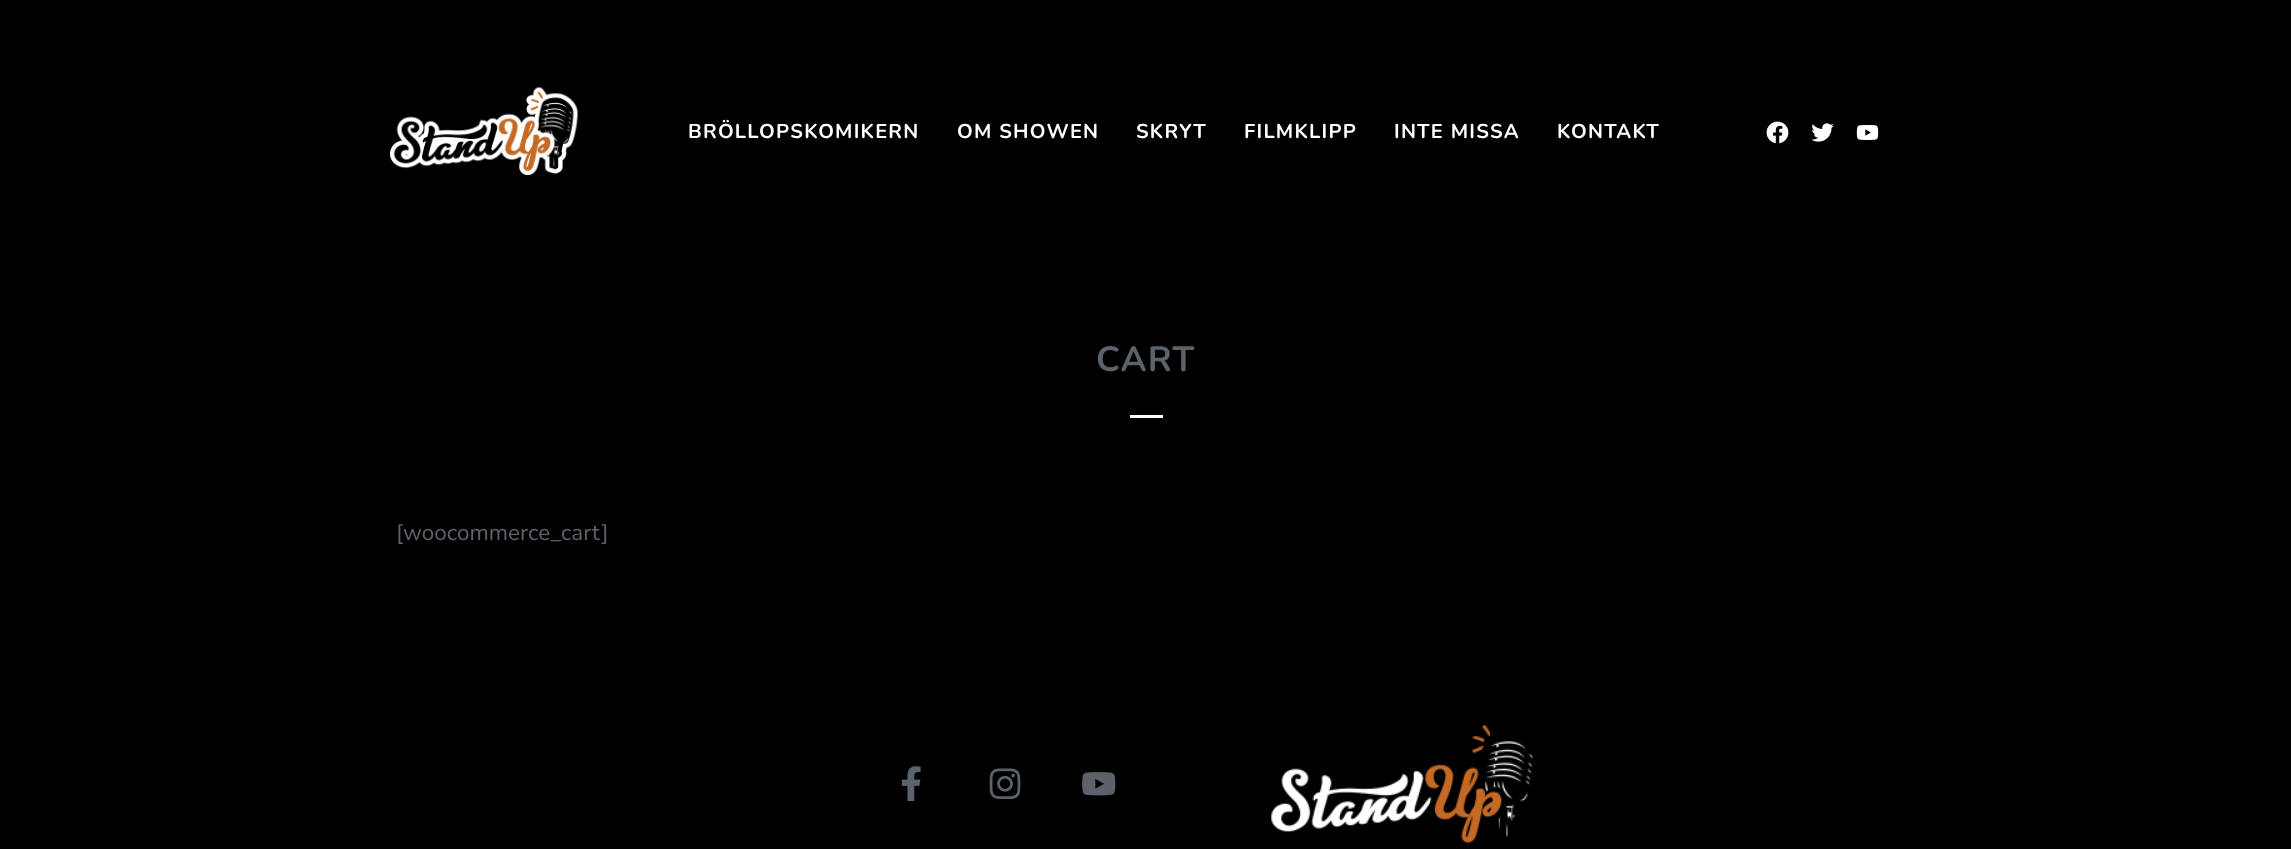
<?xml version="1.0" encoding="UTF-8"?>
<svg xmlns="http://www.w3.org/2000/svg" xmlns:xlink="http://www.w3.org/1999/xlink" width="2291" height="849">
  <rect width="100%" height="100%" fill="#000000" />
  <image x="390" y="87" width="188" height="88" xlink:href="image1.png" />
  <image x="1766" y="121" width="23" height="23" xlink:href="image2.png" />
  <image x="1811" y="123" width="23" height="19" xlink:href="image3.png" />
  <image x="1856" y="125" width="23" height="15" xlink:href="image4.png" />
  <rect x="1130" y="415" width="33" height="3" fill="#ffffff" />
  <image x="901" y="766" width="20" height="35" xlink:href="image5.png" />
  <image x="989" y="768" width="32" height="32" xlink:href="image6.png" />
  <image x="1082" y="772" width="34" height="24" xlink:href="image7.png" />
  <image x="1271" y="724" width="262" height="119" xlink:href="image8.png" />
  <text x="688" y="138" style="font-family: Nunito; font-size: 20px; font-weight: bold; letter-spacing: 1.25px; fill: #ffffff">BRÖLLOPSKOMIKERN</text>
  <text x="957" y="138" style="font-family: Nunito; font-size: 20px; font-weight: bold; letter-spacing: 1.25px; fill: #ffffff">OM SHOWEN</text>
  <text x="1136" y="138" style="font-family: Nunito; font-size: 20px; font-weight: bold; letter-spacing: 1.25px; fill: #ffffff">SKRYT</text>
  <text x="1244" y="138" style="font-family: Nunito; font-size: 20px; font-weight: bold; letter-spacing: 1.25px; fill: #ffffff">FILMKLIPP</text>
  <text x="1394" y="138" style="font-family: Nunito; font-size: 20px; font-weight: bold; letter-spacing: 1.25px; fill: #ffffff">INTE MISSA</text>
  <text x="1557" y="138" style="font-family: Nunito; font-size: 20px; font-weight: bold; letter-spacing: 1.25px; fill: #ffffff">KONTAKT</text>
  <text x="1096" y="371" style="font-family: Nunito; font-size: 35px; font-weight: bold; letter-spacing: 1.25px; fill: #5b626a">CART</text>
  <text x="396" y="540" style="font-family: Nunito; font-size: 22.5px; fill: #5b626a">[woocommerce_cart]</text>
</svg>
